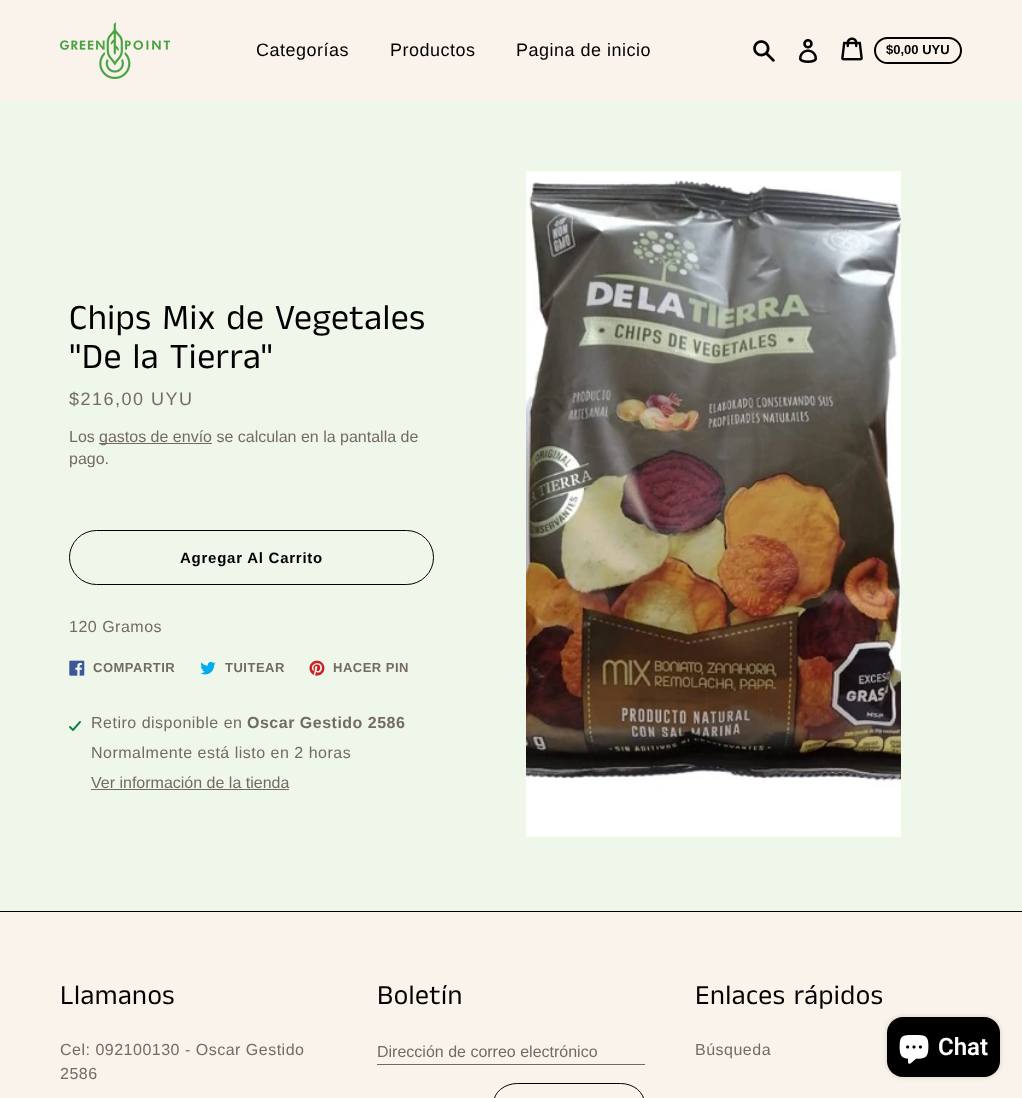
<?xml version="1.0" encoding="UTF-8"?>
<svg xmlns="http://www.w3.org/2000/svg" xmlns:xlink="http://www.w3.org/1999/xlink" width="1022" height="1098">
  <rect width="100%" height="100%" fill="#eff7eb" />
  <rect width="1022" height="101" fill="#faf3ec" />
  <image x="60" y="22" width="110" height="57" xlink:href="image1.png" />
  <image x="753" y="40" width="22" height="22" xlink:href="image2.png" />
  <image x="799" y="39" width="18" height="24" xlink:href="image3.png" />
  <image x="841" y="37" width="22" height="24" xlink:href="image4.png" />
  <rect x="875" y="38" width="86" height="25" rx="12.5" fill="none" stroke="#000000" stroke-width="2" />
  <rect x="99" y="443" width="113" height="1" fill="#746b60" />
  <rect x="69.5" y="530.5" width="364" height="54" rx="27" fill="none" stroke="#000000" />
  <image x="69" y="660" width="16" height="16" xlink:href="image5.png" />
  <image x="200" y="661" width="16" height="14" xlink:href="image6.png" />
  <image x="309" y="660" width="16" height="16" xlink:href="image7.png" />
  <image x="69" y="721" width="12" height="10" xlink:href="image8.png" />
  <rect x="91" y="789" width="198" height="1" fill="#746b60" />
  <image x="526" y="171" width="375" height="666" xlink:href="image9.png" />
  <rect y="912" width="1022" height="186" fill="#faf3ec" />
  <rect y="911" width="1022" height="1" fill="#000000" />
  <rect x="377" y="1064" width="268" height="1" fill="#746b60" />
  <rect x="493.5" y="1083.5" width="151" height="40" rx="24" fill="none" stroke="#000000" />
  <rect x="887" y="1017" width="113" height="60" rx="16" fill="#000000" fill-opacity="0.15" filter="blur(2.5px)" />
  <rect x="887" y="1017" width="113" height="60" rx="16" fill="#000000" />
  <image x="899" y="1035" width="30" height="29" xlink:href="image10.png" />
  <text x="256" y="56" style="font-family: Liberation Sans; font-size: 18px; letter-spacing: 0.5px; fill: #000000">Categorías</text>
  <text x="390" y="56" style="font-family: Liberation Sans; font-size: 18px; letter-spacing: 0.5px; fill: #000000">Productos</text>
  <text x="516" y="56" style="font-family: Liberation Sans; font-size: 18px; letter-spacing: 0.5px; fill: #000000">Pagina de inicio</text>
  <text x="886" y="54" style="font-family: Liberation Sans; font-size: 13px; font-weight: bold; fill: #000000">$0,00 UYU</text>
  <text x="69" y="329" style="font-family: Anek Tamil; font-size: 35.9px; letter-spacing: 0.5px; fill: #000000">Chips Mix de Vegetales</text>
  <text x="69" y="368" style="font-family: Anek Tamil; font-size: 35.9px; letter-spacing: 0.5px; fill: #000000">"De la Tierra"</text>
  <text x="69" y="405" style="font-family: Liberation Sans; font-size: 18px; letter-spacing: 1.5px; fill: #746b60">$216,00 UYU</text>
  <text x="69" y="442" style="font-family: Liberation Sans; font-size: 16px; fill: #746b60">Los</text>
  <text x="99" y="442" style="font-family: Liberation Sans; font-size: 16px; fill: #746b60">gastos de envío se calculan en la pantalla de</text>
  <text x="69" y="464" style="font-family: Liberation Sans; font-size: 16px; fill: #746b60">pago.</text>
  <text x="180" y="563" style="font-family: Liberation Sans; font-size: 15px; font-weight: bold; letter-spacing: 0.75px; fill: #000000">Agregar Al Carrito</text>
  <text x="69" y="632" style="font-family: Liberation Sans; font-size: 16px; letter-spacing: 0.5px; fill: #746b60">120 Gramos</text>
  <text x="93" y="672" style="font-family: Liberation Sans; font-size: 13px; font-weight: bold; letter-spacing: 0.5px; fill: #746b60">COMPARTIR</text>
  <text x="225" y="672" style="font-family: Liberation Sans; font-size: 13px; font-weight: bold; letter-spacing: 0.5px; fill: #746b60">TUITEAR</text>
  <text x="333" y="672" style="font-family: Liberation Sans; font-size: 13px; font-weight: bold; letter-spacing: 0.5px; fill: #746b60">HACER PIN</text>
  <text x="91" y="728" style="font-family: Liberation Sans; font-size: 16px; letter-spacing: 0.5px; fill: #746b60">Retiro disponible en</text>
  <text x="247" y="728" style="font-family: Liberation Sans; font-size: 16px; font-weight: bold; letter-spacing: 0.5px; fill: #746b60">Oscar Gestido 2586</text>
  <text x="91" y="758" style="font-family: Liberation Sans; font-size: 16px; letter-spacing: 0.5px; fill: #746b60">Normalmente está listo en 2 horas</text>
  <text x="91" y="788" style="font-family: Liberation Sans; font-size: 16px; fill: #746b60">Ver información de la tienda</text>
  <text x="60" y="1004" style="font-family: Anek Tamil; font-size: 27.75px; letter-spacing: 0.5px; fill: #000000">Llamanos</text>
  <text x="60" y="1055" style="font-family: Liberation Sans; font-size: 16px; letter-spacing: 0.5px; fill: #746b60">Cel: 092100130 - Oscar Gestido</text>
  <text x="60" y="1079" style="font-family: Liberation Sans; font-size: 16px; letter-spacing: 0.5px; fill: #746b60">2586</text>
  <text x="377" y="1004" style="font-family: Anek Tamil; font-size: 27.75px; letter-spacing: 0.5px; fill: #000000">Boletín</text>
  <text x="377" y="1057" style="font-family: Liberation Sans; font-size: 16px; fill: #746b60">Dirección de correo electrónico</text>
  <text x="695" y="1004" style="font-family: Anek Tamil; font-size: 27.75px; letter-spacing: 0.5px; fill: #000000">Enlaces rápidos</text>
  <text x="695" y="1055" style="font-family: Liberation Sans; font-size: 16px; letter-spacing: 0.5px; fill: #746b60">Búsqueda</text>
  <text x="938" y="1055" style="font-family: Roboto; font-size: 24px; font-weight: 600; fill: #ffffff">Chat</text>
</svg>
